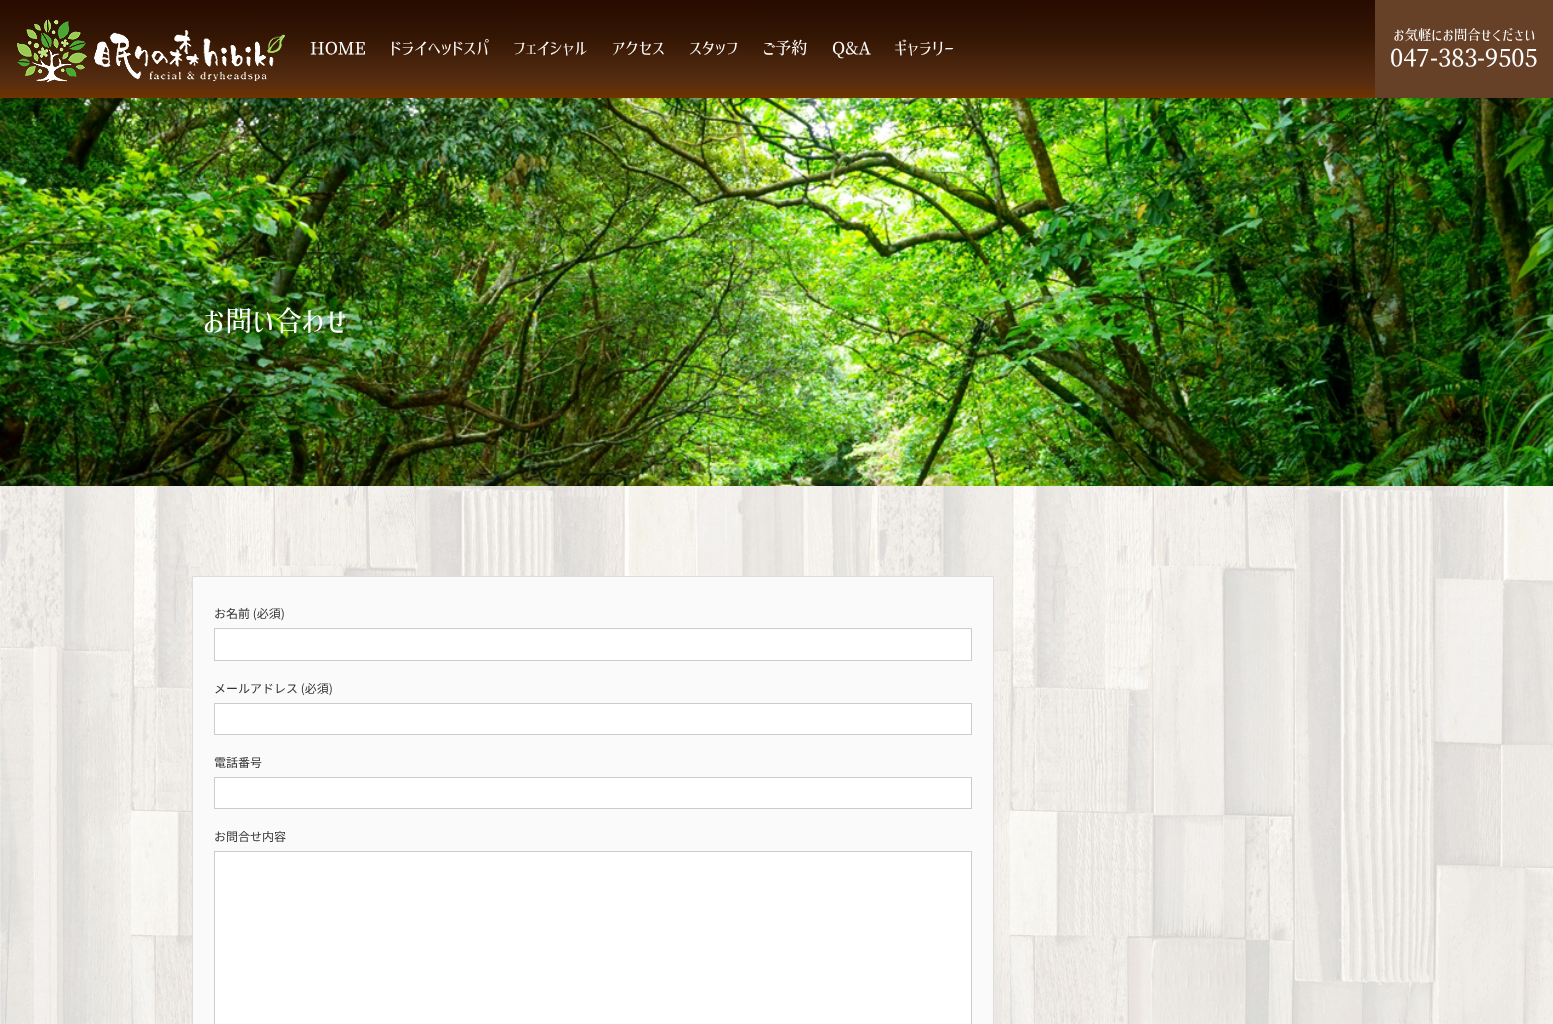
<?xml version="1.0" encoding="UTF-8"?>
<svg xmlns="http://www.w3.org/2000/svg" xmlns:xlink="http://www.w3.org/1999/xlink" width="1553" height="1024">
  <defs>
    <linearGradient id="g1" gradientUnits="userSpaceOnUse" x1="777" y1="98" x2="777" y2="0"><stop offset="0" stop-color="#6f3300" /><stop offset="0.17" stop-color="#562d11" /><stop offset="0.62" stop-color="#341604" /><stop offset="1" stop-color="#270b00" /></linearGradient>
  </defs>
  <rect width="100%" height="100%" fill="#ffffff" />
  <image x="0" y="486" width="1553" height="538" xlink:href="image1.png" />
  <rect width="1375" height="98" fill="url(#g1)" />
  <image x="17" y="19" width="268" height="63" xlink:href="image2.png" />
  <rect x="1375" width="178" height="98" fill="#674028" />
  <image x="0" y="98" width="1553" height="388" xlink:href="image3.png" />
  <rect x="192.5" y="576.5" width="801" height="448" fill="#fafafa" stroke="#dddddd" />
  <rect x="214.5" y="628.5" width="757" height="32" fill="#ffffff" stroke="#cccccc" />
  <rect x="214.5" y="703.5" width="757" height="31" fill="#ffffff" stroke="#cccccc" />
  <rect x="214.5" y="777.5" width="757" height="31" fill="#ffffff" stroke="#cccccc" />
  <rect x="214.5" y="851.5" width="757" height="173" fill="#ffffff" stroke="#cccccc" />
  <text x="310" y="54" style="font-family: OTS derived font; font-size: 17px; font-weight: 500; fill: #ffffff">HOME</text>
  <text x="390" y="54" style="font-family: OTS derived font; font-size: 17px; font-weight: 500; fill: #ffffff">ドライヘッドスパ</text>
  <text x="513" y="54" style="font-family: OTS derived font; font-size: 17px; font-weight: 500; fill: #ffffff">フェイシャル</text>
  <text x="612" y="54" style="font-family: OTS derived font; font-size: 17px; font-weight: 500; fill: #ffffff">アクセス</text>
  <text x="689" y="54" style="font-family: OTS derived font; font-size: 17px; font-weight: 500; fill: #ffffff">スタッフ</text>
  <text x="762" y="54" style="font-family: OTS derived font; font-size: 17px; font-weight: 500; fill: #ffffff">ご予約</text>
  <text x="832" y="54" style="font-family: OTS derived font; font-size: 17px; font-weight: 500; fill: #ffffff">Q&amp;A</text>
  <text x="894" y="54" style="font-family: OTS derived font; font-size: 17px; font-weight: 500; fill: #ffffff">ギャラリー</text>
  <text x="1393" y="40" style="font-family: OTS derived font; font-size: 14px; font-weight: 500; fill: #ffffff">お気軽にお問合せください</text>
  <text x="1390" y="66" style="font-family: OTS derived font; font-size: 24px; font-weight: 500; fill: #ffffff">047</text>
  <text x="1430" y="66" style="font-family: Liberation Sans; font-size: 24px; fill: #ffffff">-</text>
  <text x="1438" y="66" style="font-family: OTS derived font; font-size: 24px; font-weight: 500; fill: #ffffff">383</text>
  <text x="1477" y="66" style="font-family: Liberation Sans; font-size: 24px; fill: #ffffff">-</text>
  <text x="1485" y="66" style="font-family: OTS derived font; font-size: 24px; font-weight: 500; fill: #ffffff">9505</text>
  <text x="202" y="331" style="font-family: OTS derived font; font-size: 28px; font-weight: 500; fill: #ffffff">お問い合わせ</text>
  <text x="214" y="618" style="font-family: Noto Sans JP; font-size: 12px; fill: #333333">お名前 (必須)</text>
  <text x="214" y="693" style="font-family: Noto Sans JP; font-size: 12px; fill: #333333">メールアドレス (必須)</text>
  <text x="214" y="767" style="font-family: Noto Sans JP; font-size: 12px; fill: #333333">電話番号</text>
  <text x="214" y="841" style="font-family: Noto Sans JP; font-size: 12px; fill: #333333">お問合せ内容</text>
</svg>
